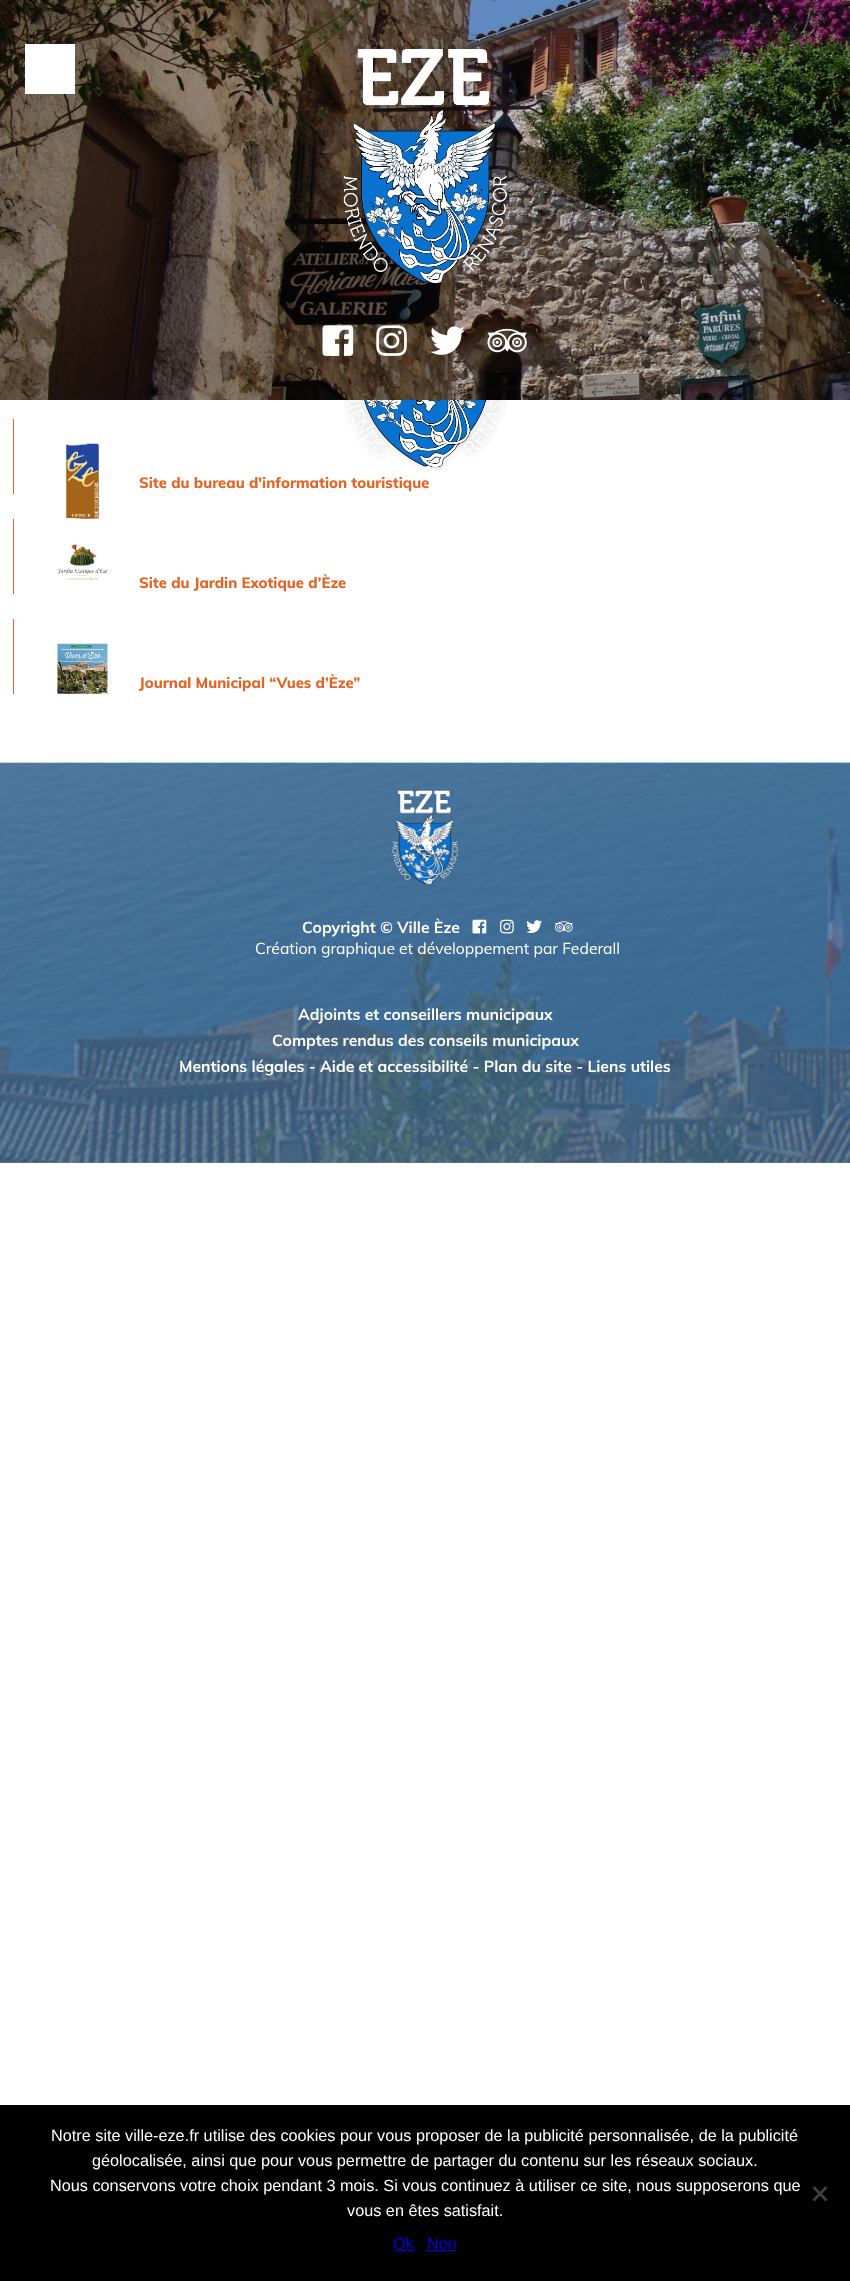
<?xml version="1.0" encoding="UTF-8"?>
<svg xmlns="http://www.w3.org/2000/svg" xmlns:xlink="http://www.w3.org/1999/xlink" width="850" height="2281">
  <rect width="100%" height="100%" fill="#ffffff" />
  <rect y="1162" width="850" height="1" fill="#6688a6" />
  <image x="0" y="0" width="850" height="400" xlink:href="image1.png" />
  <image x="343" y="46" width="165" height="238" xlink:href="image2.png" />
  <image x="322" y="325" width="32" height="31" xlink:href="image3.png" />
  <image x="376" y="325" width="31" height="31" xlink:href="image4.png" />
  <image x="430" y="326" width="35" height="29" xlink:href="image5.png" />
  <image x="487" y="328" width="40" height="25" xlink:href="image6.png" />
  <rect x="25" y="44" width="50" height="50" fill="#ffffff" />
  <image x="344" y="400" width="163" height="71" xlink:href="image7.png" />
  <rect x="13" y="419" width="1" height="75" fill="#e46222" />
  <image x="66" y="443" width="33" height="76" xlink:href="image8.png" />
  <rect x="13" y="519" width="1" height="75" fill="#e46222" />
  <image x="57" y="544" width="51" height="36" xlink:href="image9.png" />
  <rect x="13" y="619" width="1" height="75" fill="#e46222" />
  <image x="57" y="643" width="51" height="51" xlink:href="image10.png" />
  <image x="0" y="762" width="850" height="401" xlink:href="image11.png" />
  <image x="392" y="789" width="67" height="96" xlink:href="image12.png" />
  <image x="472" y="919" width="15" height="15" xlink:href="image13.png" />
  <image x="500" y="919" width="14" height="15" xlink:href="image14.png" />
  <image x="526" y="920" width="16" height="13" xlink:href="image15.png" />
  <image x="555" y="921" width="18" height="11" xlink:href="image16.png" />
  <rect y="2105" width="850" height="176" fill="#000000" />
  <path d="M 825.5 2186 l 2 2 l -13 13.5 l -2 -2 z" fill="#404040" />
  <path d="M 812.5 2188 l 2 -2 l 13 13.5 l -2 2 z" fill="#404040" />
  <rect x="394" y="2250" width="20" height="1" fill="#0000ee" />
  <rect x="426" y="2250" width="30" height="1" fill="#0000ee" />
  <text x="139" y="488" style="font-family: Muli; font-size: 14.9px; font-weight: 800; fill: #e46222">Site du bureau d'information touristique</text>
  <text x="139" y="588" style="font-family: Muli; font-size: 14.9px; font-weight: 800; fill: #e46222">Site du Jardin Exotique d’Èze</text>
  <text x="139" y="688" style="font-family: Muli; font-size: 14.9px; font-weight: 800; fill: #e46222">Journal Municipal “Vues d’Èze”</text>
  <text x="302" y="933" style="font-family: Muli; font-size: 15.75px; font-weight: bold; fill: #ffffff">Copyright © Ville Èze</text>
  <text x="255" y="954" style="font-family: Muli; font-size: 15.75px; fill: #ffffff">Création graphique et développement par Federall</text>
  <text x="298" y="1020" style="font-family: Muli; font-size: 15.75px; font-weight: bold; fill: #ffffff">Adjoints et conseillers municipaux</text>
  <text x="272" y="1046" style="font-family: Muli; font-size: 15.75px; font-weight: bold; fill: #ffffff">Comptes rendus des conseils municipaux</text>
  <text x="179" y="1072" style="font-family: Muli; font-size: 15.75px; font-weight: bold; fill: #ffffff">Mentions légales - Aide et accessibilité - Plan du site - Liens utiles</text>
  <text x="51" y="2141" style="font-family: Liberation Sans; font-size: 16.25px; fill: #ffffff">Notre site ville-eze.fr utilise des cookies pour vous proposer de la publicité personnalisée, de la publicité</text>
  <text x="92" y="2166" style="font-family: Liberation Sans; font-size: 16.25px; fill: #ffffff">géolocalisée, ainsi que pour vous permettre de partager du contenu sur les réseaux sociaux.</text>
  <text x="50" y="2191" style="font-family: Liberation Sans; font-size: 16.25px; fill: #ffffff">Nous conservons votre choix pendant 3 mois. Si vous continuez à utiliser ce site, nous supposerons que</text>
  <text x="347" y="2216" style="font-family: Liberation Sans; font-size: 16.25px; fill: #ffffff">vous en êtes satisfait.</text>
  <text x="393" y="2249" style="font-family: Liberation Sans; font-size: 16.25px; fill: #0000ee">Ok</text>
  <text x="427" y="2249" style="font-family: Liberation Sans; font-size: 16.25px; fill: #0000ee">Non</text>
</svg>
